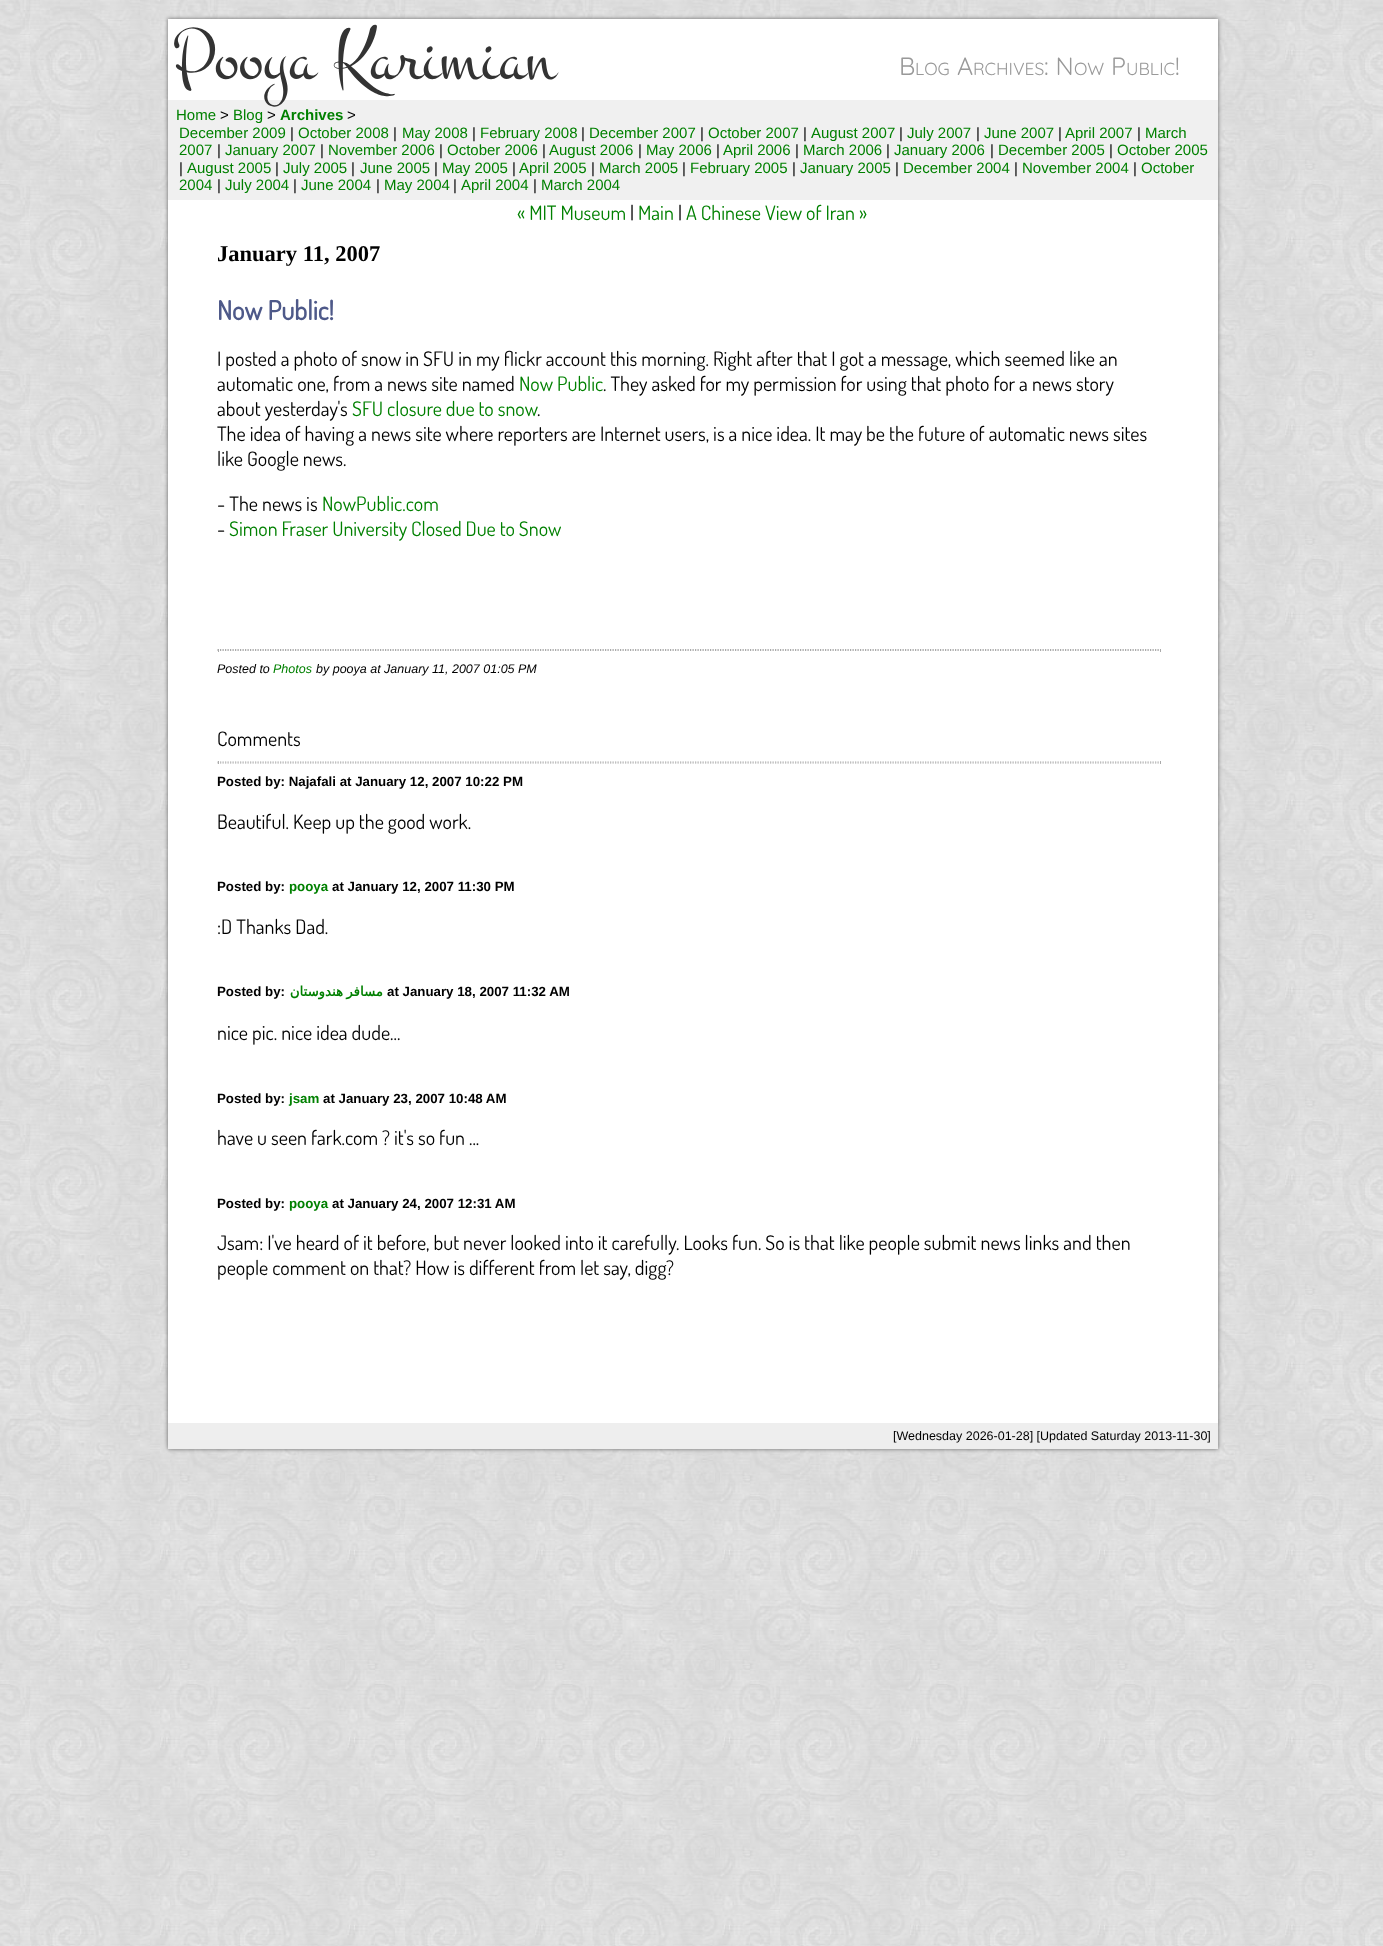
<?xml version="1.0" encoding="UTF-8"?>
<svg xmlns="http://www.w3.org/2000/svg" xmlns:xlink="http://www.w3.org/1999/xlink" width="1383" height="1946">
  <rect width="100%" height="100%" fill="#ffffff" />
  <image x="0" y="0" width="1383" height="1946" xlink:href="image1.png" />
  <rect x="168" y="19" width="1050" height="1430" fill="#666666" filter="blur(2px)" />
  <rect x="168" y="19" width="1050" height="1404" fill="#ffffff" />
  <rect x="168" y="100" width="1050" height="100" fill="#f0f0f0" />
  <path d="M 217.5 649.5 h 943.5" fill="none" stroke="#aaaaaa" stroke-width="1.2" stroke-dasharray="1.25 1.25" />
  <rect x="1160" y="649" width="1" height="3" fill="#aaaaaa" />
  <path d="M 217.5 650.5 h 943.5" fill="none" stroke="#aaaaaa" stroke-width="1.2" stroke-dasharray="1.25 1.25" />
  <rect x="218" y="649" width="1" height="3" fill="#aaaaaa" />
  <path d="M 217.5 762 h 943.5" fill="none" stroke="#aaaaaa" stroke-width="1.2" stroke-dasharray="1.25 1.25" />
  <rect x="1160" y="761" width="1" height="3" fill="#aaaaaa" />
  <path d="M 217.5 763 h 943.5" fill="none" stroke="#aaaaaa" stroke-width="1.2" stroke-dasharray="1.25 1.25" />
  <rect x="218" y="761" width="1" height="3" fill="#aaaaaa" />
  <rect x="168" y="1423" width="1050" height="26" fill="#eeeeee" />
  <text x="173" y="78" style="font-family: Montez; font-size: 75px; fill: #333333">Pooya Karimian</text>
  <text x="899" y="75" style="font-family: Quicksand; font-size: 25px; font-weight: 300; fill: #999999">B</text>
  <text x="915" y="75" style="font-family: Quicksand; font-size: 17.5px; font-weight: 300; fill: #999999">LOG</text>
  <text x="957" y="75" style="font-family: Quicksand; font-size: 25px; font-weight: 300; fill: #999999">A</text>
  <text x="973" y="75" style="font-family: Quicksand; font-size: 17.5px; font-weight: 300; fill: #999999">RCHIVES</text>
  <text x="1044" y="75" style="font-family: Quicksand; font-size: 25px; font-weight: 300; fill: #999999">: N</text>
  <text x="1074" y="75" style="font-family: Quicksand; font-size: 17.5px; font-weight: 300; fill: #999999">OW</text>
  <text x="1111" y="75" style="font-family: Quicksand; font-size: 25px; font-weight: 300; fill: #999999">P</text>
  <text x="1126" y="75" style="font-family: Quicksand; font-size: 17.5px; font-weight: 300; fill: #999999">UBLIC</text>
  <text x="1175" y="75" style="font-family: Quicksand; font-size: 25px; font-weight: 300; fill: #999999">!</text>
  <text x="176" y="120" style="font-family: Liberation Sans; font-size: 15px; fill: #008000">Home</text>
  <text x="220" y="120" style="font-family: Liberation Sans; font-size: 15px; fill: #000000">&gt;</text>
  <text x="233" y="120" style="font-family: Liberation Sans; font-size: 15px; fill: #008000">Blog</text>
  <text x="267" y="120" style="font-family: Liberation Sans; font-size: 15px; fill: #000000">&gt;</text>
  <text x="280" y="120" style="font-family: Liberation Sans; font-size: 15px; font-weight: bold; fill: #008000">Archives</text>
  <text x="347" y="120" style="font-family: Liberation Sans; font-size: 15px; fill: #000000">&gt;</text>
  <text x="179" y="138" style="font-family: Liberation Sans; font-size: 15px; fill: #008000">December 2009</text>
  <text x="290" y="138" style="font-family: Liberation Sans; font-size: 15px; fill: #000000">|</text>
  <text x="298" y="138" style="font-family: Liberation Sans; font-size: 15px; fill: #008000">October 2008</text>
  <text x="393" y="138" style="font-family: Liberation Sans; font-size: 15px; fill: #000000">|</text>
  <text x="402" y="138" style="font-family: Liberation Sans; font-size: 15px; fill: #008000">May 2008</text>
  <text x="472" y="138" style="font-family: Liberation Sans; font-size: 15px; fill: #000000">|</text>
  <text x="480" y="138" style="font-family: Liberation Sans; font-size: 15px; fill: #008000">February 2008</text>
  <text x="581" y="138" style="font-family: Liberation Sans; font-size: 15px; fill: #000000">|</text>
  <text x="589" y="138" style="font-family: Liberation Sans; font-size: 15px; fill: #008000">December 2007</text>
  <text x="700" y="138" style="font-family: Liberation Sans; font-size: 15px; fill: #000000">|</text>
  <text x="708" y="138" style="font-family: Liberation Sans; font-size: 15px; fill: #008000">October 2007</text>
  <text x="803" y="138" style="font-family: Liberation Sans; font-size: 15px; fill: #000000">|</text>
  <text x="811" y="138" style="font-family: Liberation Sans; font-size: 15px; fill: #008000">August 2007</text>
  <text x="899" y="138" style="font-family: Liberation Sans; font-size: 15px; fill: #000000">|</text>
  <text x="907" y="138" style="font-family: Liberation Sans; font-size: 15px; fill: #008000">July 2007</text>
  <text x="976" y="138" style="font-family: Liberation Sans; font-size: 15px; fill: #000000">|</text>
  <text x="984" y="138" style="font-family: Liberation Sans; font-size: 15px; fill: #008000">June 2007</text>
  <text x="1058" y="138" style="font-family: Liberation Sans; font-size: 15px; fill: #000000">|</text>
  <text x="1065" y="138" style="font-family: Liberation Sans; font-size: 15px; fill: #008000">April 2007</text>
  <text x="1137" y="138" style="font-family: Liberation Sans; font-size: 15px; fill: #000000">|</text>
  <text x="1145" y="138" style="font-family: Liberation Sans; font-size: 15px; fill: #008000">March</text>
  <text x="179" y="155" style="font-family: Liberation Sans; font-size: 15px; fill: #008000">2007</text>
  <text x="217" y="155" style="font-family: Liberation Sans; font-size: 15px; fill: #000000">|</text>
  <text x="225" y="155" style="font-family: Liberation Sans; font-size: 15px; fill: #008000">January 2007</text>
  <text x="320" y="155" style="font-family: Liberation Sans; font-size: 15px; fill: #000000">|</text>
  <text x="328" y="155" style="font-family: Liberation Sans; font-size: 15px; fill: #008000">November 2006</text>
  <text x="439" y="155" style="font-family: Liberation Sans; font-size: 15px; fill: #000000">|</text>
  <text x="447" y="155" style="font-family: Liberation Sans; font-size: 15px; fill: #008000">October 2006</text>
  <text x="542" y="155" style="font-family: Liberation Sans; font-size: 15px; fill: #000000">|</text>
  <text x="549" y="155" style="font-family: Liberation Sans; font-size: 15px; fill: #008000">August 2006</text>
  <text x="638" y="155" style="font-family: Liberation Sans; font-size: 15px; fill: #000000">|</text>
  <text x="646" y="155" style="font-family: Liberation Sans; font-size: 15px; fill: #008000">May 2006</text>
  <text x="716" y="155" style="font-family: Liberation Sans; font-size: 15px; fill: #000000">|</text>
  <text x="723" y="155" style="font-family: Liberation Sans; font-size: 15px; fill: #008000">April 2006</text>
  <text x="795" y="155" style="font-family: Liberation Sans; font-size: 15px; fill: #000000">|</text>
  <text x="803" y="155" style="font-family: Liberation Sans; font-size: 15px; fill: #008000">March 2006</text>
  <text x="886" y="155" style="font-family: Liberation Sans; font-size: 15px; fill: #000000">|</text>
  <text x="894" y="155" style="font-family: Liberation Sans; font-size: 15px; fill: #008000">January 2006</text>
  <text x="990" y="155" style="font-family: Liberation Sans; font-size: 15px; fill: #000000">|</text>
  <text x="998" y="155" style="font-family: Liberation Sans; font-size: 15px; fill: #008000">December 2005</text>
  <text x="1109" y="155" style="font-family: Liberation Sans; font-size: 15px; fill: #000000">|</text>
  <text x="1117" y="155" style="font-family: Liberation Sans; font-size: 15px; fill: #008000">October 2005</text>
  <text x="179" y="173" style="font-family: Liberation Sans; font-size: 15px; fill: #000000">|</text>
  <text x="187" y="173" style="font-family: Liberation Sans; font-size: 15px; fill: #008000">August 2005</text>
  <text x="275" y="173" style="font-family: Liberation Sans; font-size: 15px; fill: #000000">|</text>
  <text x="283" y="173" style="font-family: Liberation Sans; font-size: 15px; fill: #008000">July 2005</text>
  <text x="351" y="173" style="font-family: Liberation Sans; font-size: 15px; fill: #000000">|</text>
  <text x="360" y="173" style="font-family: Liberation Sans; font-size: 15px; fill: #008000">June 2005</text>
  <text x="434" y="173" style="font-family: Liberation Sans; font-size: 15px; fill: #000000">|</text>
  <text x="442" y="173" style="font-family: Liberation Sans; font-size: 15px; fill: #008000">May 2005</text>
  <text x="512" y="173" style="font-family: Liberation Sans; font-size: 15px; fill: #000000">|</text>
  <text x="519" y="173" style="font-family: Liberation Sans; font-size: 15px; fill: #008000">April 2005</text>
  <text x="591" y="173" style="font-family: Liberation Sans; font-size: 15px; fill: #000000">|</text>
  <text x="599" y="173" style="font-family: Liberation Sans; font-size: 15px; fill: #008000">March 2005</text>
  <text x="682" y="173" style="font-family: Liberation Sans; font-size: 15px; fill: #000000">|</text>
  <text x="690" y="173" style="font-family: Liberation Sans; font-size: 15px; fill: #008000">February 2005</text>
  <text x="792" y="173" style="font-family: Liberation Sans; font-size: 15px; fill: #000000">|</text>
  <text x="800" y="173" style="font-family: Liberation Sans; font-size: 15px; fill: #008000">January 2005</text>
  <text x="895" y="173" style="font-family: Liberation Sans; font-size: 15px; fill: #000000">|</text>
  <text x="903" y="173" style="font-family: Liberation Sans; font-size: 15px; fill: #008000">December 2004</text>
  <text x="1014" y="173" style="font-family: Liberation Sans; font-size: 15px; fill: #000000">|</text>
  <text x="1022" y="173" style="font-family: Liberation Sans; font-size: 15px; fill: #008000">November 2004</text>
  <text x="1133" y="173" style="font-family: Liberation Sans; font-size: 15px; fill: #000000">|</text>
  <text x="1141" y="173" style="font-family: Liberation Sans; font-size: 15px; fill: #008000">October</text>
  <text x="179" y="190" style="font-family: Liberation Sans; font-size: 15px; fill: #008000">2004</text>
  <text x="217" y="190" style="font-family: Liberation Sans; font-size: 15px; fill: #000000">|</text>
  <text x="225" y="190" style="font-family: Liberation Sans; font-size: 15px; fill: #008000">July 2004</text>
  <text x="293" y="190" style="font-family: Liberation Sans; font-size: 15px; fill: #000000">|</text>
  <text x="301" y="190" style="font-family: Liberation Sans; font-size: 15px; fill: #008000">June 2004</text>
  <text x="376" y="190" style="font-family: Liberation Sans; font-size: 15px; fill: #000000">|</text>
  <text x="384" y="190" style="font-family: Liberation Sans; font-size: 15px; fill: #008000">May 2004</text>
  <text x="453" y="190" style="font-family: Liberation Sans; font-size: 15px; fill: #000000">|</text>
  <text x="461" y="190" style="font-family: Liberation Sans; font-size: 15px; fill: #008000">April 2004</text>
  <text x="533" y="190" style="font-family: Liberation Sans; font-size: 15px; fill: #000000">|</text>
  <text x="541" y="190" style="font-family: Liberation Sans; font-size: 15px; fill: #008000">March 2004</text>
  <text x="517" y="220" style="font-family: Dosis; font-size: 20px; fill: #008000">« MIT Museum</text>
  <text x="630" y="220" style="font-family: Dosis; font-size: 20px; fill: #000000">|</text>
  <text x="638" y="220" style="font-family: Dosis; font-size: 20px; fill: #008000">Main</text>
  <text x="678" y="220" style="font-family: Dosis; font-size: 20px; fill: #000000">|</text>
  <text x="686" y="220" style="font-family: Dosis; font-size: 20px; fill: #008000">A Chinese View of Iran »</text>
  <text x="217" y="261" style="font-family: Liberation Serif; font-size: 22.5px; font-weight: bold; fill: #000000">January 11, 2007</text>
  <text x="217" y="320" style="font-family: Dosis; font-size: 26.5px; font-weight: bold; fill: #4e5989">Now Public!</text>
  <text x="217" y="366" style="font-family: Dosis; font-size: 20px; fill: #000000">I posted a photo of snow in SFU in my flickr account this morning. Right after that I got a message, which seemed like an</text>
  <text x="217" y="391" style="font-family: Dosis; font-size: 20px; fill: #000000">automatic one, from a news site named</text>
  <text x="519" y="391" style="font-family: Dosis; font-size: 20px; fill: #008000">Now Public</text>
  <text x="603" y="391" style="font-family: Dosis; font-size: 20px; fill: #000000">. They asked for my permission for using that photo for a news story</text>
  <text x="217" y="416" style="font-family: Dosis; font-size: 20px; fill: #000000">about yesterday's</text>
  <text x="352" y="416" style="font-family: Dosis; font-size: 20px; fill: #008000">SFU closure due to snow</text>
  <text x="537" y="416" style="font-family: Dosis; font-size: 20px; fill: #000000">.</text>
  <text x="217" y="441" style="font-family: Dosis; font-size: 20px; fill: #000000">The idea of having a news site where reporters are Internet users, is a nice idea. It may be the future of automatic news sites</text>
  <text x="217" y="466" style="font-family: Dosis; font-size: 20px; fill: #000000">like Google news.</text>
  <text x="217" y="511" style="font-family: Dosis; font-size: 20px; fill: #000000">- The news is</text>
  <text x="322" y="511" style="font-family: Dosis; font-size: 20px; fill: #008000">NowPublic.com</text>
  <text x="217" y="536" style="font-family: Dosis; font-size: 20px; fill: #000000">-</text>
  <text x="229" y="536" style="font-family: Dosis; font-size: 20px; fill: #008000">Simon Fraser University Closed Due to Snow</text>
  <text x="217" y="673" style="font-family: Liberation Sans; font-size: 12.5px; font-style: italic; fill: #000000">Posted to</text>
  <text x="273" y="673" style="font-family: Liberation Sans; font-size: 12.5px; font-style: italic; fill: #008000">Photos</text>
  <text x="316" y="673" style="font-family: Liberation Sans; font-size: 12.5px; font-style: italic; fill: #000000">by pooya at January 11, 2007 01:05 PM</text>
  <text x="217" y="746" style="font-family: Dosis; font-size: 20px; fill: #000000">Comments</text>
  <text x="217" y="786" style="font-family: Liberation Sans; font-size: 13.3px; font-weight: bold; fill: #000000">Posted by: Najafali at January 12, 2007 10:22 PM</text>
  <text x="217" y="829" style="font-family: Dosis; font-size: 20px; fill: #000000">Beautiful. Keep up the good work.</text>
  <text x="217" y="891" style="font-family: Liberation Sans; font-size: 13.3px; font-weight: bold; fill: #000000">Posted by:</text>
  <text x="289" y="891" style="font-family: Liberation Sans; font-size: 13.3px; font-weight: bold; fill: #008000">pooya</text>
  <text x="332" y="891" style="font-family: Liberation Sans; font-size: 13.3px; font-weight: bold; fill: #000000">at January 12, 2007 11:30 PM</text>
  <text x="217" y="934" style="font-family: Dosis; font-size: 20px; fill: #000000">:D Thanks Dad.</text>
  <text x="217" y="996" style="font-family: Liberation Sans; font-size: 13.3px; font-weight: bold; fill: #000000">Posted by:</text>
  <text x="383" y="996" word-spacing="-1" style="font-family: DejaVu Sans; font-size: 13.3px; font-weight: bold; direction: rtl; fill: #008000">مسافر هندوستان</text>
  <text x="387" y="996" style="font-family: Liberation Sans; font-size: 13.3px; font-weight: bold; fill: #000000">at January 18, 2007 11:32 AM</text>
  <text x="217" y="1040" style="font-family: Dosis; font-size: 20px; fill: #000000">nice pic. nice idea dude...</text>
  <text x="217" y="1103" style="font-family: Liberation Sans; font-size: 13.3px; font-weight: bold; fill: #000000">Posted by:</text>
  <text x="289" y="1103" style="font-family: Liberation Sans; font-size: 13.3px; font-weight: bold; fill: #008000">jsam</text>
  <text x="323" y="1103" style="font-family: Liberation Sans; font-size: 13.3px; font-weight: bold; fill: #000000">at January 23, 2007 10:48 AM</text>
  <text x="217" y="1145" style="font-family: Dosis; font-size: 20px; fill: #000000">have u seen fark.com ? it's so fun ...</text>
  <text x="217" y="1208" style="font-family: Liberation Sans; font-size: 13.3px; font-weight: bold; fill: #000000">Posted by:</text>
  <text x="289" y="1208" style="font-family: Liberation Sans; font-size: 13.3px; font-weight: bold; fill: #008000">pooya</text>
  <text x="332" y="1208" style="font-family: Liberation Sans; font-size: 13.3px; font-weight: bold; fill: #000000">at January 24, 2007 12:31 AM</text>
  <text x="217" y="1250" style="font-family: Dosis; font-size: 20px; fill: #000000">Jsam: I've heard of it before, but never looked into it carefully. Looks fun. So is that like people submit news links and then</text>
  <text x="217" y="1275" style="font-family: Dosis; font-size: 20px; fill: #000000">people comment on that? How is different from let say, digg?</text>
  <text x="893" y="1440" style="font-family: Liberation Sans; font-size: 12.5px; fill: #000000">[Wednesday 2026-01-28] [Updated Saturday 2013-11-30]</text>
</svg>
